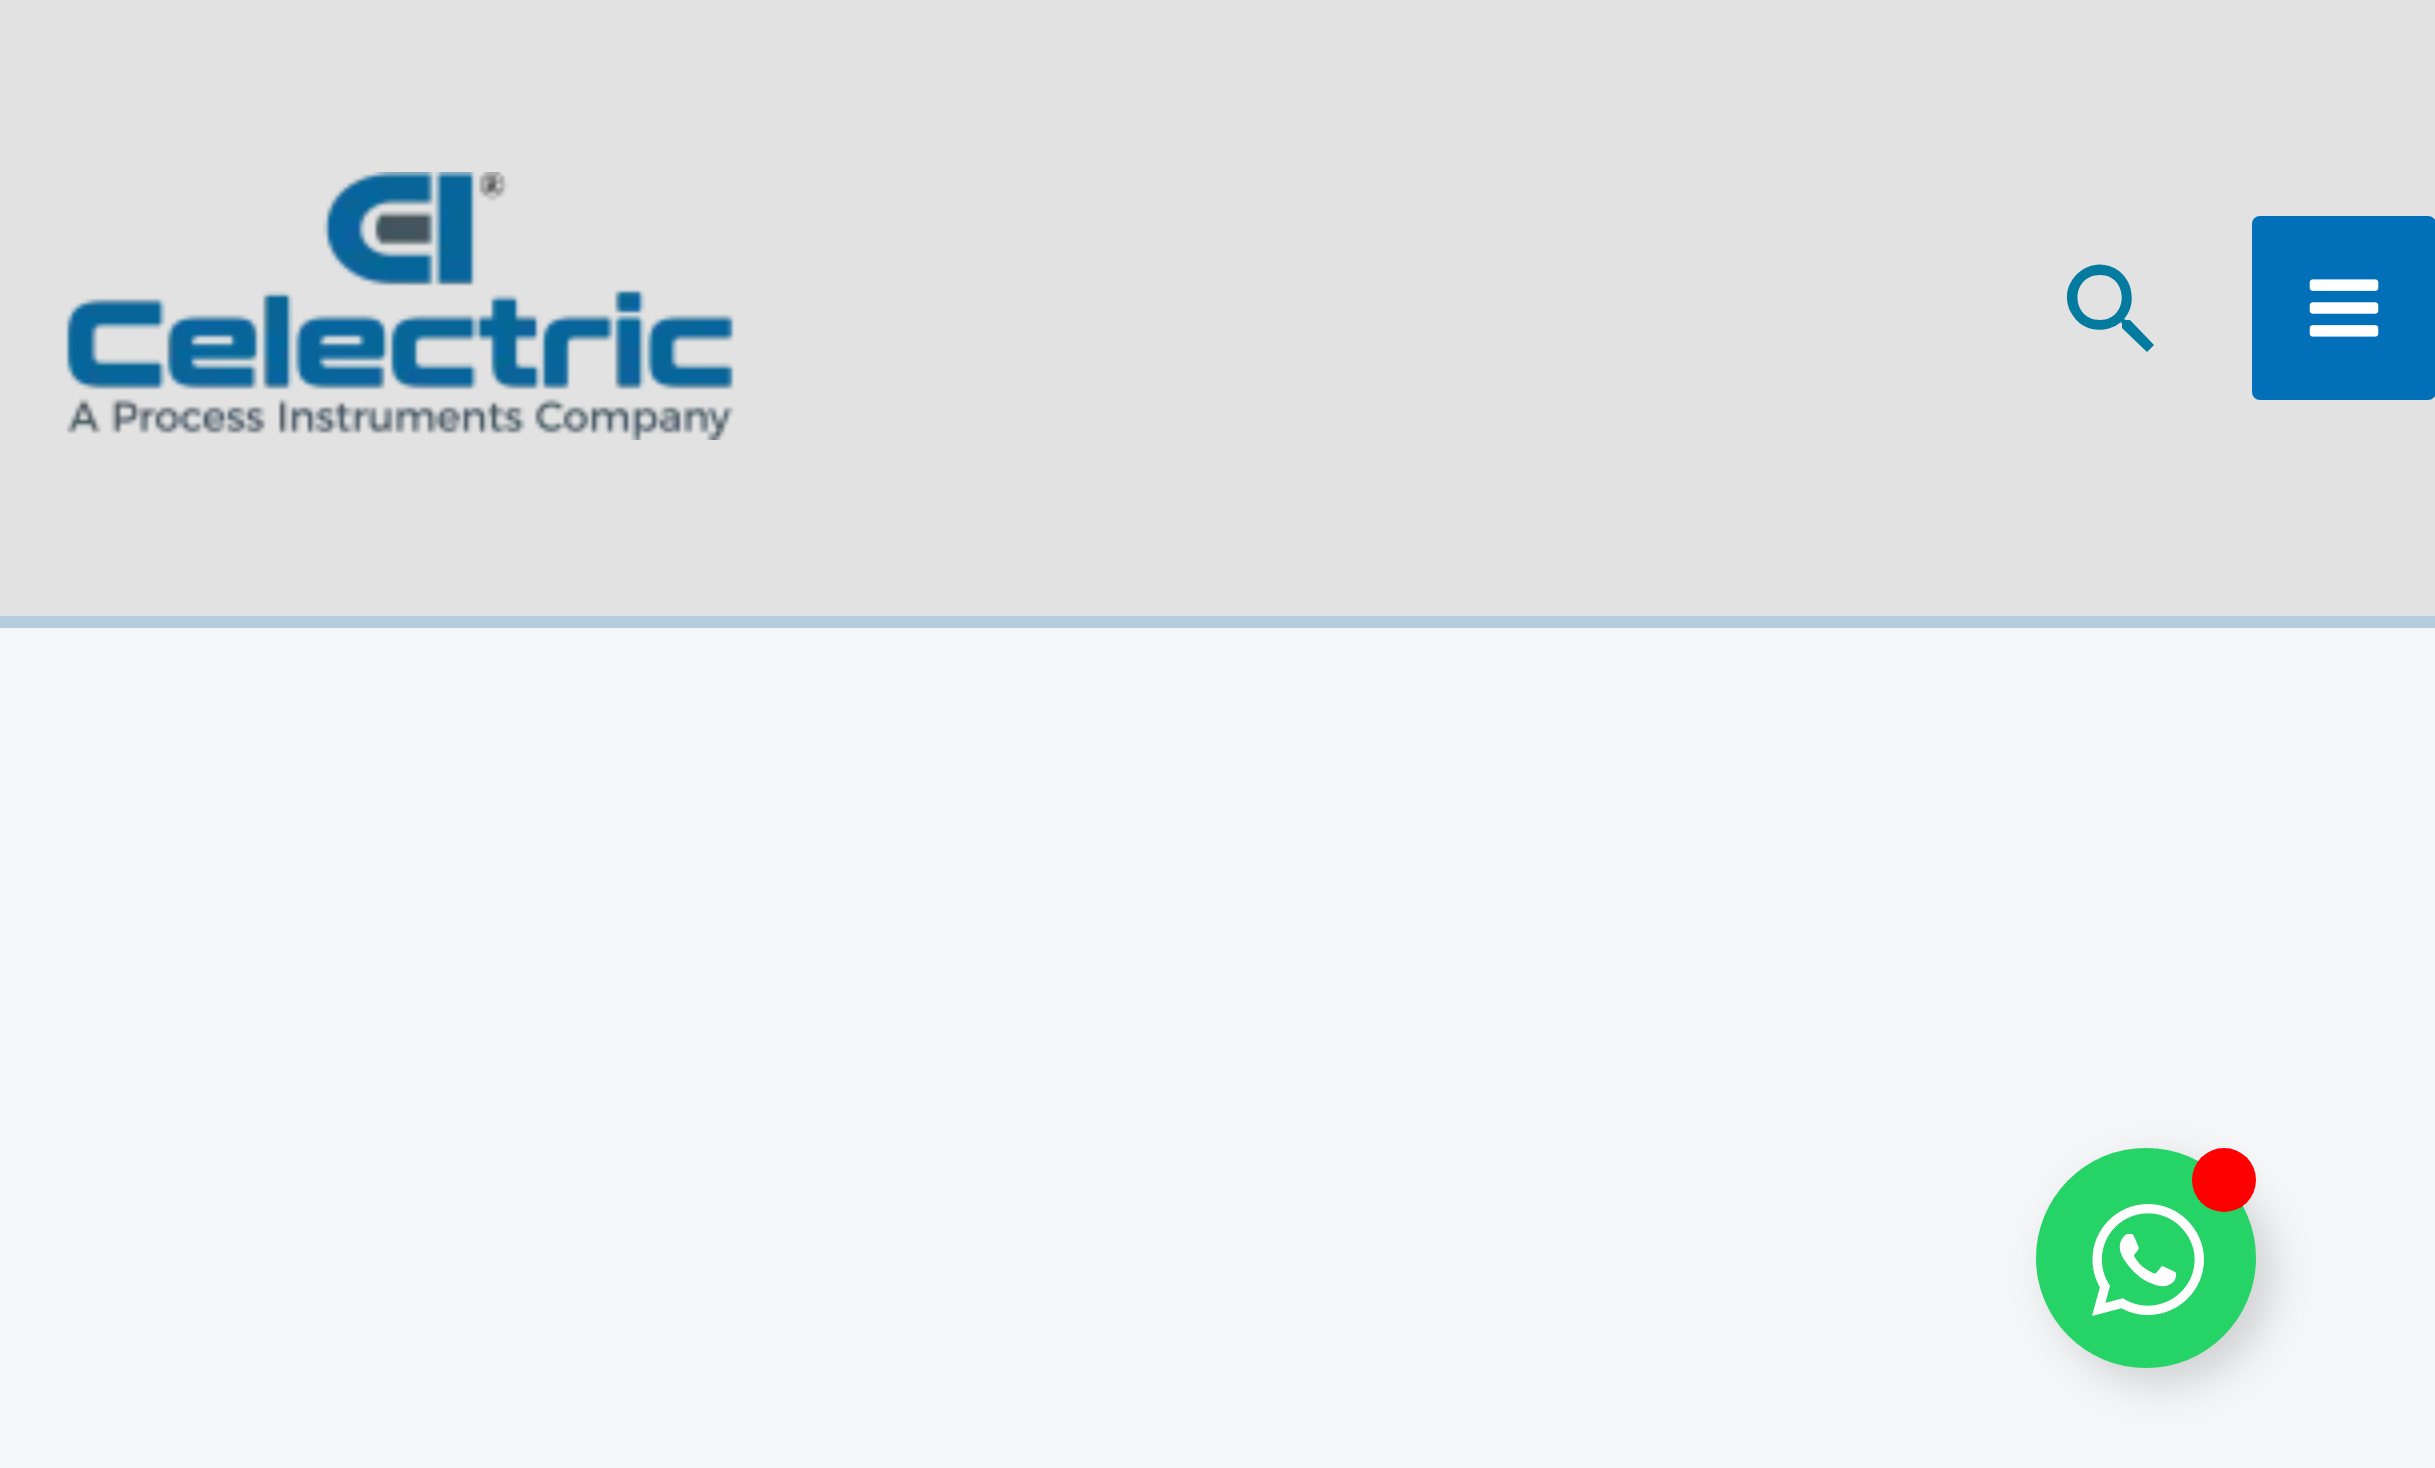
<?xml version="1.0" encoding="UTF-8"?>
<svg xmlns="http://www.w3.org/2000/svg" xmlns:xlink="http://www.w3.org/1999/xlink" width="2435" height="1468">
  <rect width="100%" height="100%" fill="#f4f6f8" />
  <rect width="2435" height="616" fill="#e2e2e2" />
  <rect y="616" width="2435" height="12" fill="#b3cddc" />
  <image x="66" y="172" width="668" height="268" xlink:href="image1.png" />
  <path d="M 2100 320 c 29 0 29 -45 0 -45 c -30 0 -30 45 0 45 z m 30 0 l 24 25 l -7 7 l -25 -24 v -4 l -1 -2 c -14 12 -37 10 -47 -5 c -23 -30 15 -68 45 -46 c 6 5 11 12 12 20 c 2 10 0 20 -7 28 l 2 1 z" fill="#027b9e" />
  <rect x="2252" y="216" width="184" height="184" rx="8" fill="#0170b9" />
  <image x="2309" y="279" width="70" height="58" xlink:href="image2.png" />
  <rect x="2052" y="1164" width="220" height="220" rx="110" fill="#000000" fill-opacity="0.15" filter="blur(20px)" />
  <circle cx="2146" cy="1258" r="110" fill="#25d366" />
  <image x="2092" y="1204" width="112" height="112" xlink:href="image3.png" />
  <circle cx="2224" cy="1180" r="32" fill="#ff0000" />
</svg>
